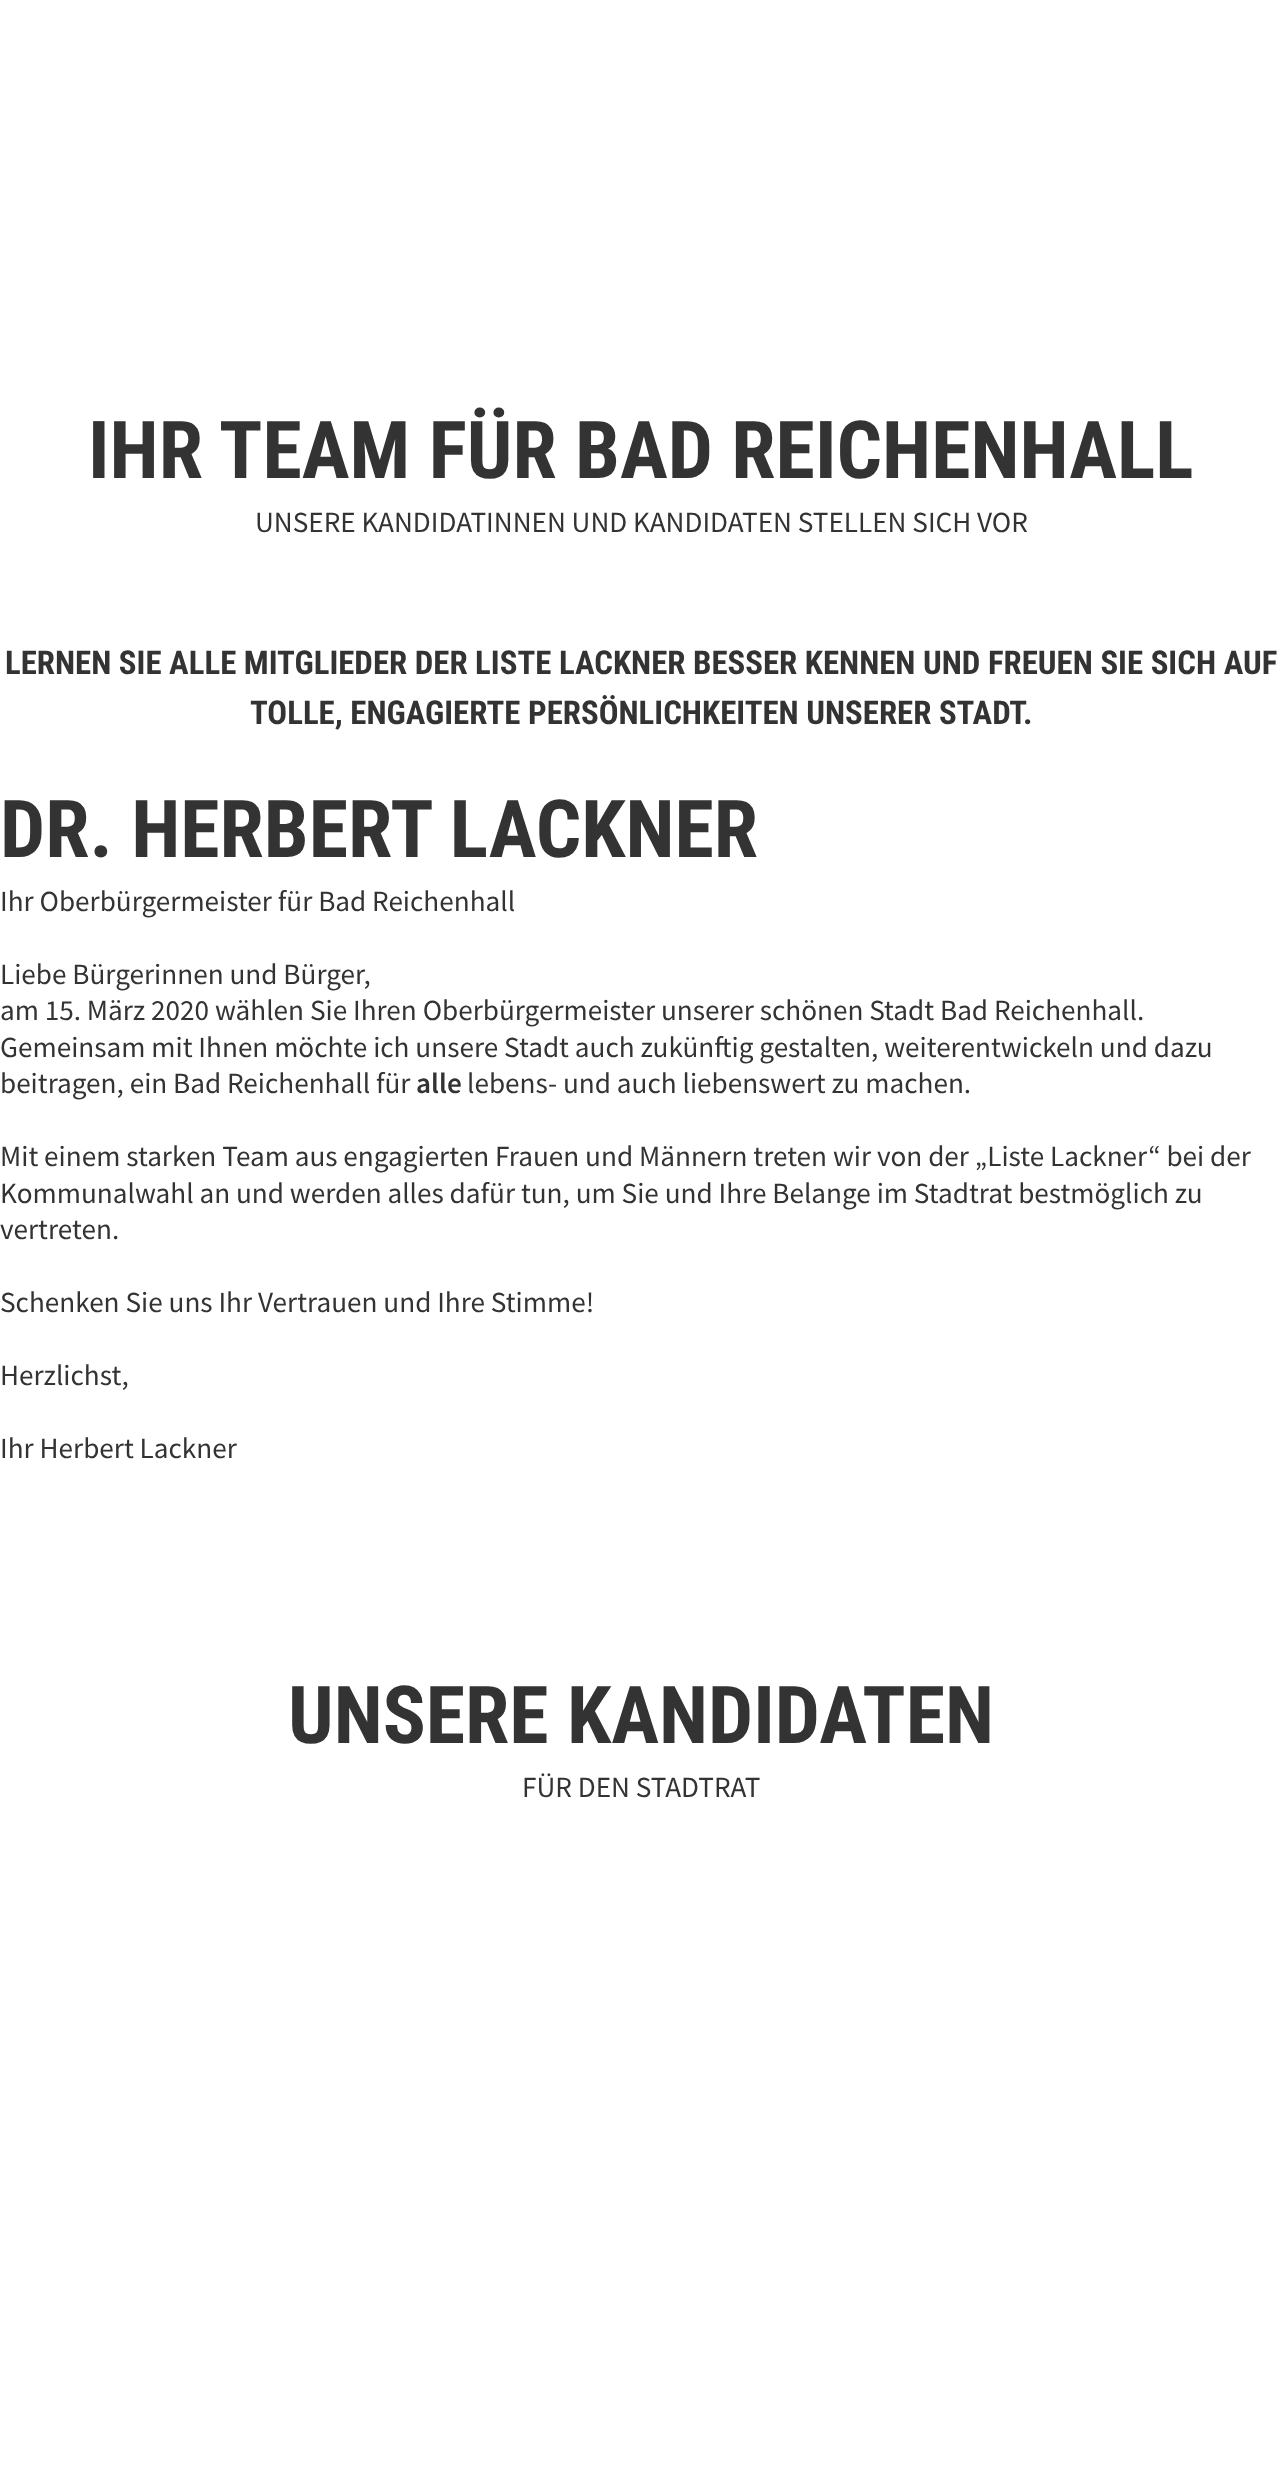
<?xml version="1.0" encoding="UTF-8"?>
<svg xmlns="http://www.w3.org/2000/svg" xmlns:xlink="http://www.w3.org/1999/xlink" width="1281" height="2488">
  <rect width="100%" height="100%" fill="#ffffff" />
  <text x="88" y="478" style="font-family: Roboto Condensed; font-size: 80px; font-weight: bold; fill: #333333">IHR TEAM FÜR BAD REICHENHALL</text>
  <text x="255" y="532" style="font-family: Source Sans Pro; font-size: 29.2px; fill: #333333">UNSERE KANDIDATINNEN UND KANDIDATEN STELLEN SICH VOR</text>
  <text x="5" y="674" style="font-family: Roboto Condensed; font-size: 32.85px; font-weight: bold; fill: #333333">LERNEN SIE ALLE MITGLIEDER DER LISTE LACKNER BESSER KENNEN UND FREUEN SIE SICH AUF</text>
  <text x="250" y="724" style="font-family: Roboto Condensed; font-size: 32.85px; font-weight: bold; fill: #333333">TOLLE, ENGAGIERTE PERSÖNLICHKEITEN UNSERER STADT.</text>
  <text x="0" y="857" style="font-family: Roboto Condensed; font-size: 80px; font-weight: bold; fill: #333333">DR. HERBERT LACKNER</text>
  <text x="0" y="911" style="font-family: Source Sans Pro; font-size: 29.2px; fill: #333333">Ihr Oberbürgermeister für Bad Reichenhall</text>
  <text x="0" y="984" style="font-family: Source Sans Pro; font-size: 29.2px; fill: #333333">Liebe Bürgerinnen und Bürger,</text>
  <text x="0" y="1020" style="font-family: Source Sans Pro; font-size: 29.2px; fill: #333333">am 15. März 2020 wählen Sie Ihren Oberbürgermeister unserer schönen Stadt Bad Reichenhall.</text>
  <text x="0" y="1057" style="font-family: Source Sans Pro; font-size: 29.2px; fill: #333333">Gemeinsam mit Ihnen möchte ich unsere Stadt auch zukünftig gestalten, weiterentwickeln und dazu</text>
  <text x="0" y="1093" style="font-family: Source Sans Pro; font-size: 29.2px; fill: #333333">beitragen, ein Bad Reichenhall für</text>
  <text x="416" y="1093" style="font-family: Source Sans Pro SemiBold; font-size: 29.2px; font-weight: 600; fill: #333333">alle</text>
  <text x="467" y="1093" style="font-family: Source Sans Pro; font-size: 29.2px; fill: #333333">lebens- und auch liebenswert zu machen.</text>
  <text x="0" y="1166" style="font-family: Source Sans Pro; font-size: 29.2px; fill: #333333">Mit einem starken Team aus engagierten Frauen und Männern treten wir von der „Liste Lackner“ bei der</text>
  <text x="0" y="1203" style="font-family: Source Sans Pro; font-size: 29.2px; fill: #333333">Kommunalwahl an und werden alles dafür tun, um Sie und Ihre Belange im Stadtrat bestmöglich zu</text>
  <text x="0" y="1239" style="font-family: Source Sans Pro; font-size: 29.2px; fill: #333333">vertreten.</text>
  <text x="0" y="1312" style="font-family: Source Sans Pro; font-size: 29.2px; fill: #333333">Schenken Sie uns Ihr Vertrauen und Ihre Stimme!</text>
  <text x="0" y="1385" style="font-family: Source Sans Pro; font-size: 29.2px; fill: #333333">Herzlichst,</text>
  <text x="0" y="1458" style="font-family: Source Sans Pro; font-size: 29.2px; fill: #333333">Ihr Herbert Lackner</text>
  <text x="288" y="1743" style="font-family: Roboto Condensed; font-size: 80px; font-weight: bold; fill: #333333">UNSERE KANDIDATEN</text>
  <text x="522" y="1797" style="font-family: Source Sans Pro; font-size: 29.2px; fill: #333333">FÜR DEN STADTRAT</text>
</svg>
